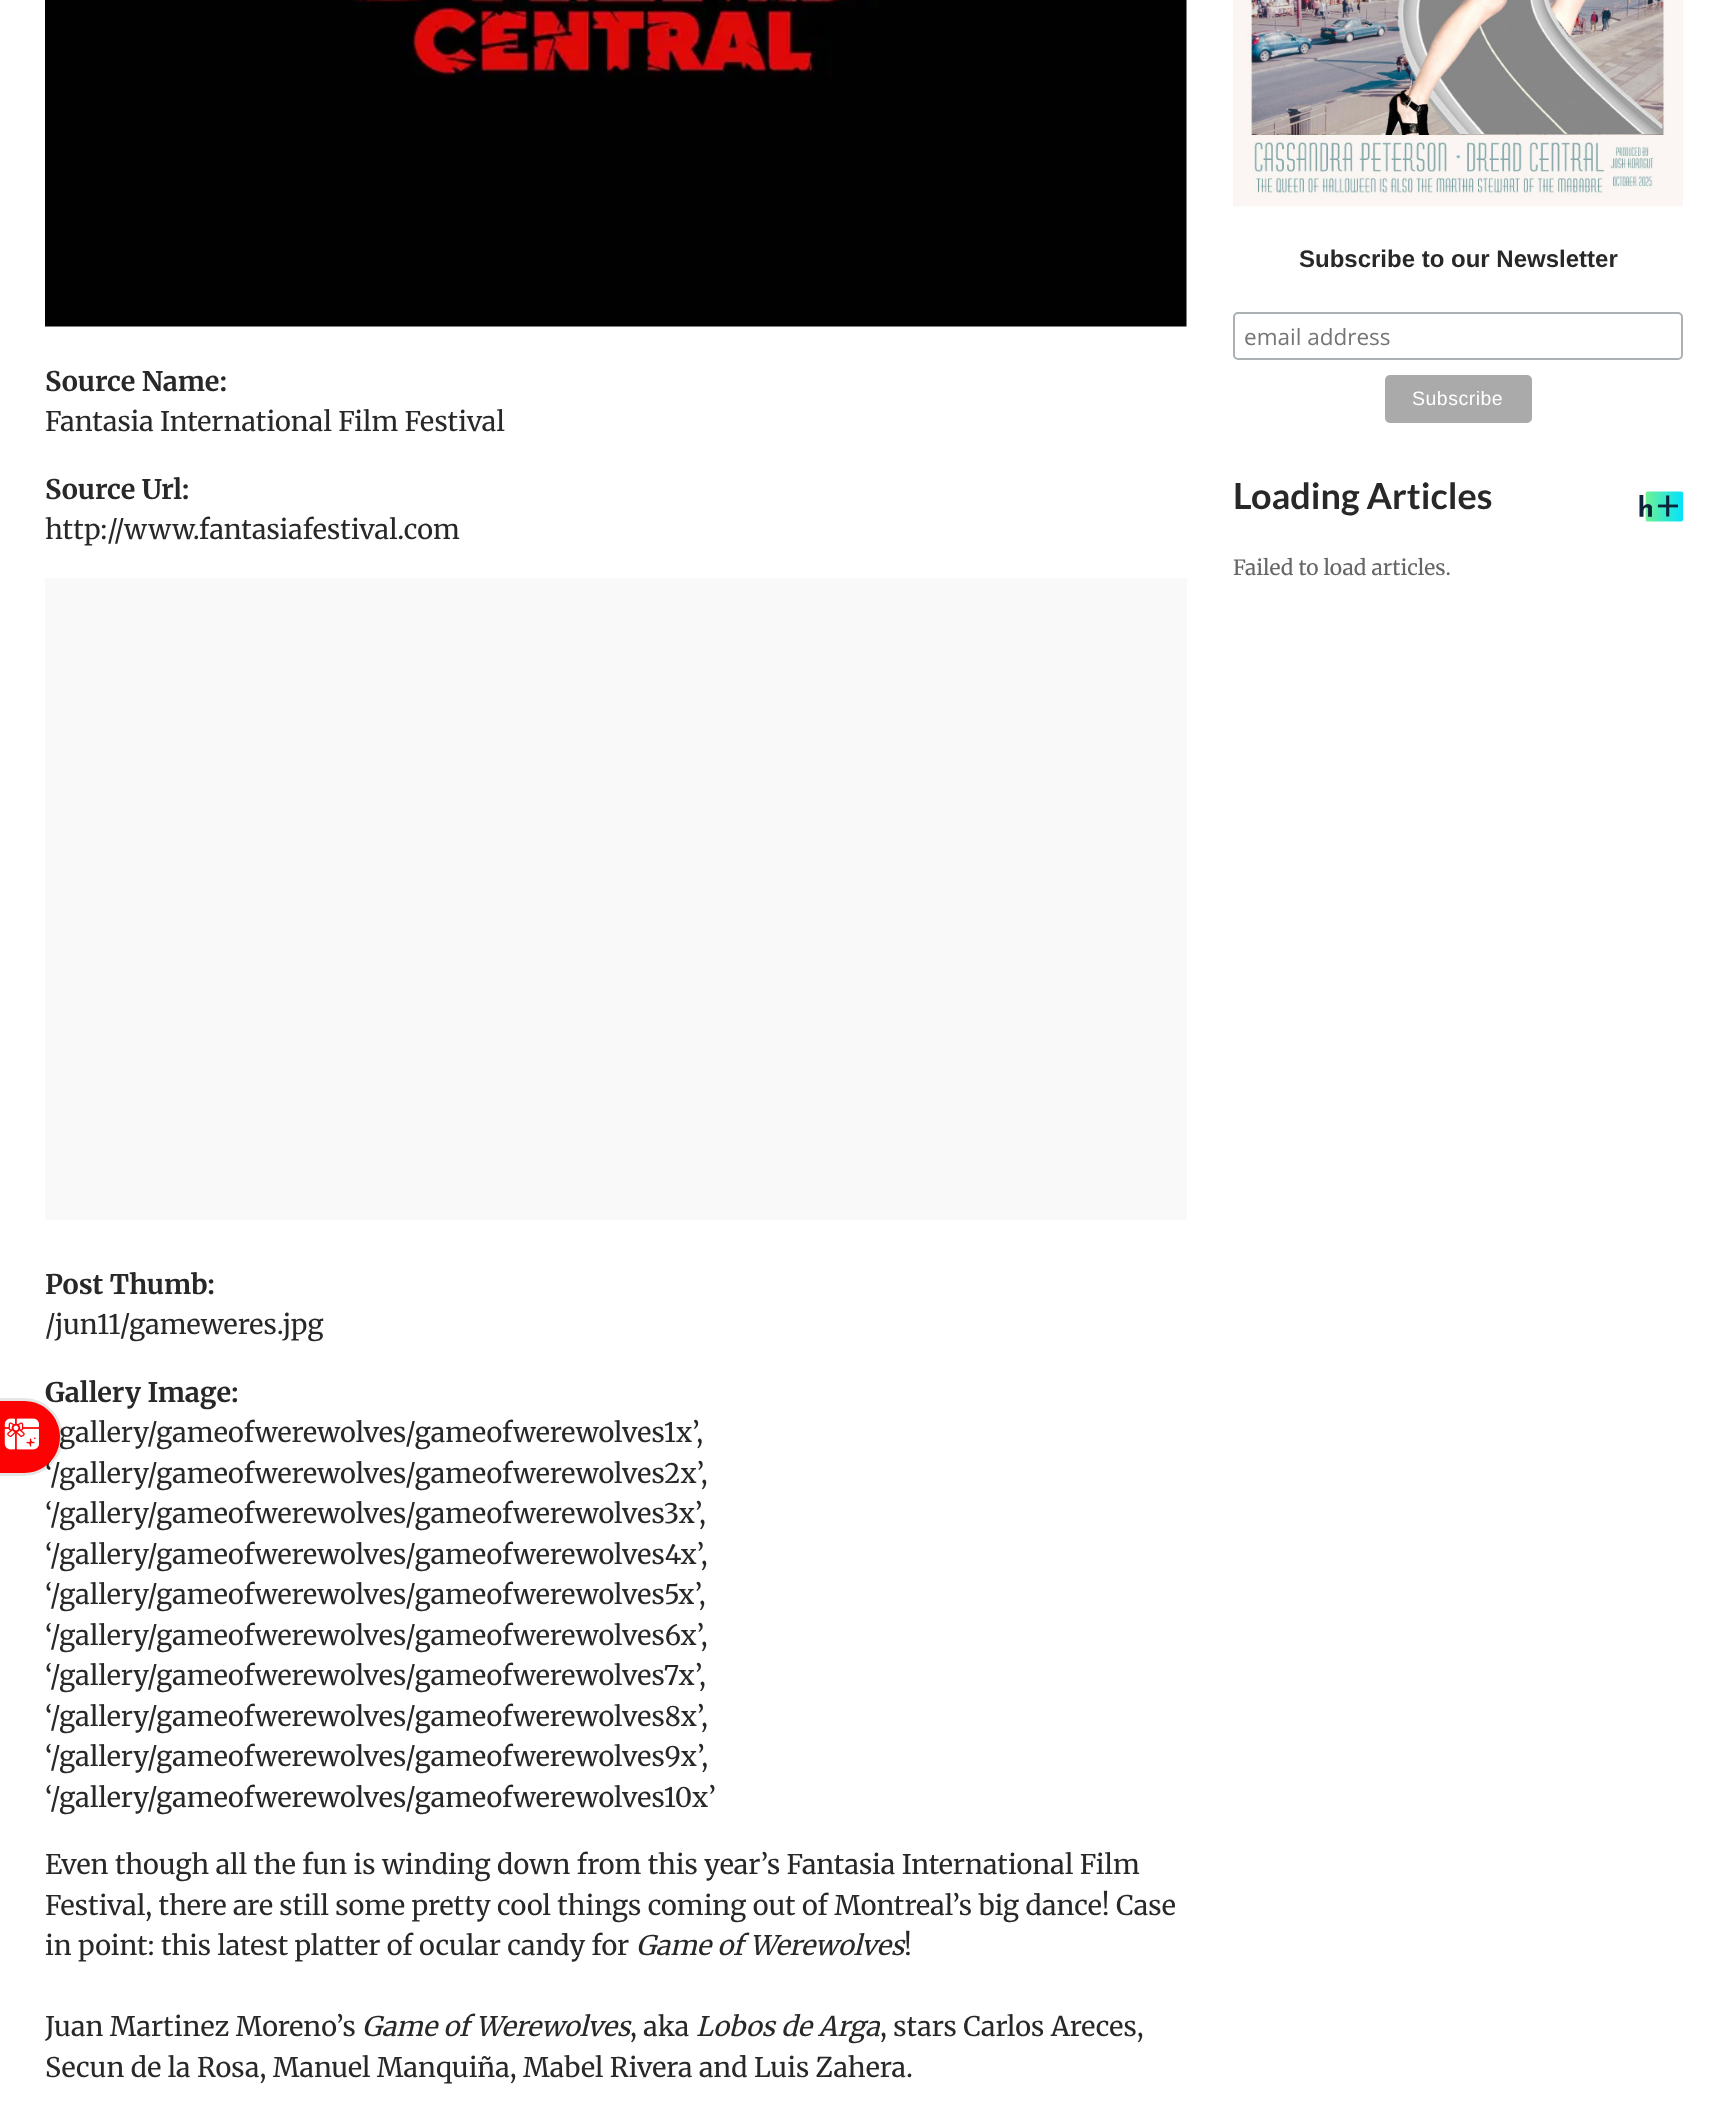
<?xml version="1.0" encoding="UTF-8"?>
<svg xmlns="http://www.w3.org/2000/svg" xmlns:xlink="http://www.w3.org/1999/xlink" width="1729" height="2117">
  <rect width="100%" height="100%" fill="#ffffff" />
  <image x="45" y="0" width="1142" height="327" xlink:href="image2.png" />
  <rect x="45" y="578" width="1142" height="642" fill="#f9f9f9" />
  <image x="1233" y="0" width="450" height="207" xlink:href="image3.png" />
  <rect x="1234" y="313" width="448" height="46" rx="4" fill="none" stroke="#abb0b2" stroke-width="2" />
  <rect x="1385" y="375" width="147" height="48" rx="5" fill="#aaaaaa" />
  <image x="1639" y="491" width="44" height="31" xlink:href="image4.png" />
  <text x="45" y="391" style="font-family: 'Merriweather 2'; font-size: 27px; font-weight: 300; fill: #282828">Source Name:</text>
  <text x="45" y="431" style="font-family: Merriweather; font-size: 27px; font-weight: 300; fill: #282828">Fantasia International Film Festival</text>
  <text x="45" y="499" style="font-family: 'Merriweather 2'; font-size: 27px; font-weight: 300; fill: #282828">Source Url:</text>
  <text x="45" y="539" style="font-family: Merriweather; font-size: 27px; font-weight: 300; fill: #282828">http://www.fantasiafestival.com</text>
  <text x="45" y="1294" style="font-family: 'Merriweather 2'; font-size: 27px; font-weight: 300; fill: #282828">Post Thumb:</text>
  <text x="45" y="1334" style="font-family: Merriweather; font-size: 27px; font-weight: 300; fill: #282828">/jun11/gameweres.jpg</text>
  <text x="45" y="1402" style="font-family: 'Merriweather 2'; font-size: 27px; font-weight: 300; fill: #282828">Gallery Image:</text>
  <text x="59" y="1442" style="font-family: Merriweather; font-size: 27px; font-weight: 300; fill: #282828">gallery/gameofwerewolves/gameofwerewolves1x’,</text>
  <text x="45" y="1483" style="font-family: Merriweather; font-size: 27px; font-weight: 300; fill: #282828">‘/gallery/gameofwerewolves/gameofwerewolves2x’,</text>
  <path d="M -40.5 1399.5 h 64.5 c 20.5 0 37.5 17 37.5 37.5 c 0 20.5 -17 37.5 -37.5 37.5 h -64.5 z" fill="none" stroke="#000000" stroke-opacity="0.1" stroke-width="3" />
  <path d="M -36 1401 h 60 c 20 0 36 16 36 36 c 0 20 -16 36 -36 36 h -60 z" fill="#fc0203" />
  <image x="4" y="1418" width="35" height="32" xlink:href="image1.png" />
  <text x="45" y="1523" style="font-family: Merriweather; font-size: 27px; font-weight: 300; fill: #282828">‘/gallery/gameofwerewolves/gameofwerewolves3x’,</text>
  <text x="45" y="1564" style="font-family: Merriweather; font-size: 27px; font-weight: 300; fill: #282828">‘/gallery/gameofwerewolves/gameofwerewolves4x’,</text>
  <text x="45" y="1604" style="font-family: Merriweather; font-size: 27px; font-weight: 300; fill: #282828">‘/gallery/gameofwerewolves/gameofwerewolves5x’,</text>
  <text x="45" y="1645" style="font-family: Merriweather; font-size: 27px; font-weight: 300; fill: #282828">‘/gallery/gameofwerewolves/gameofwerewolves6x’,</text>
  <text x="45" y="1685" style="font-family: Merriweather; font-size: 27px; font-weight: 300; fill: #282828">‘/gallery/gameofwerewolves/gameofwerewolves7x’,</text>
  <text x="45" y="1726" style="font-family: Merriweather; font-size: 27px; font-weight: 300; fill: #282828">‘/gallery/gameofwerewolves/gameofwerewolves8x’,</text>
  <text x="45" y="1766" style="font-family: Merriweather; font-size: 27px; font-weight: 300; fill: #282828">‘/gallery/gameofwerewolves/gameofwerewolves9x’,</text>
  <text x="45" y="1807" style="font-family: Merriweather; font-size: 27px; font-weight: 300; fill: #282828">‘/gallery/gameofwerewolves/gameofwerewolves10x’</text>
  <text x="45" y="1874" style="font-family: Merriweather; font-size: 27px; font-weight: 300; fill: #282828">Even though all the fun is winding down from this year’s Fantasia International Film</text>
  <text x="45" y="1915" style="font-family: Merriweather; font-size: 27px; font-weight: 300; fill: #282828">Festival, there are still some pretty cool things coming out of Montreal’s big dance! Case</text>
  <text x="45" y="1955" style="font-family: Merriweather; font-size: 27px; font-weight: 300; fill: #282828">in point: this latest platter of ocular candy for</text>
  <text x="636" y="1955" style="font-family: Merriweather; font-size: 27px; font-weight: 300; font-style: italic; fill: #282828">Game of Werewolves</text>
  <text x="904" y="1955" style="font-family: Merriweather; font-size: 27px; font-weight: 300; fill: #282828">!</text>
  <text x="45" y="2036" style="font-family: Merriweather; font-size: 27px; font-weight: 300; fill: #282828">Juan Martinez Moreno’s</text>
  <text x="362" y="2036" style="font-family: Merriweather; font-size: 27px; font-weight: 300; font-style: italic; fill: #282828">Game of Werewolves</text>
  <text x="630" y="2036" style="font-family: Merriweather; font-size: 27px; font-weight: 300; fill: #282828">, aka</text>
  <text x="696" y="2036" style="font-family: Merriweather; font-size: 27px; font-weight: 300; font-style: italic; fill: #282828">Lobos de Arga</text>
  <text x="880" y="2036" style="font-family: Merriweather; font-size: 27px; font-weight: 300; fill: #282828">, stars Carlos Areces,</text>
  <text x="45" y="2077" style="font-family: Merriweather; font-size: 27px; font-weight: 300; fill: #282828">Secun de la Rosa, Manuel Manquiña, Mabel Rivera and Luis Zahera.</text>
  <text x="1299" y="267" style="font-family: Liberation Sans; font-size: 24px; font-weight: bold; fill: #282828">Subscribe to our Newsletter</text>
  <text x="1244" y="345" style="font-family: Open Sans; font-size: 22.5px; fill: #757575">email address</text>
  <text x="1412" y="405" style="font-family: Liberation Sans; font-size: 19.5px; letter-spacing: 0.5px; fill: #ffffff">Subscribe</text>
  <text x="1233" y="509" style="font-family: Lato; font-size: 36px; font-weight: bold; fill: #282828">Loading Articles</text>
  <text x="1233" y="575" style="font-family: Merriweather; font-size: 21px; font-weight: 300; fill: #666666">Failed to load articles.</text>
</svg>
